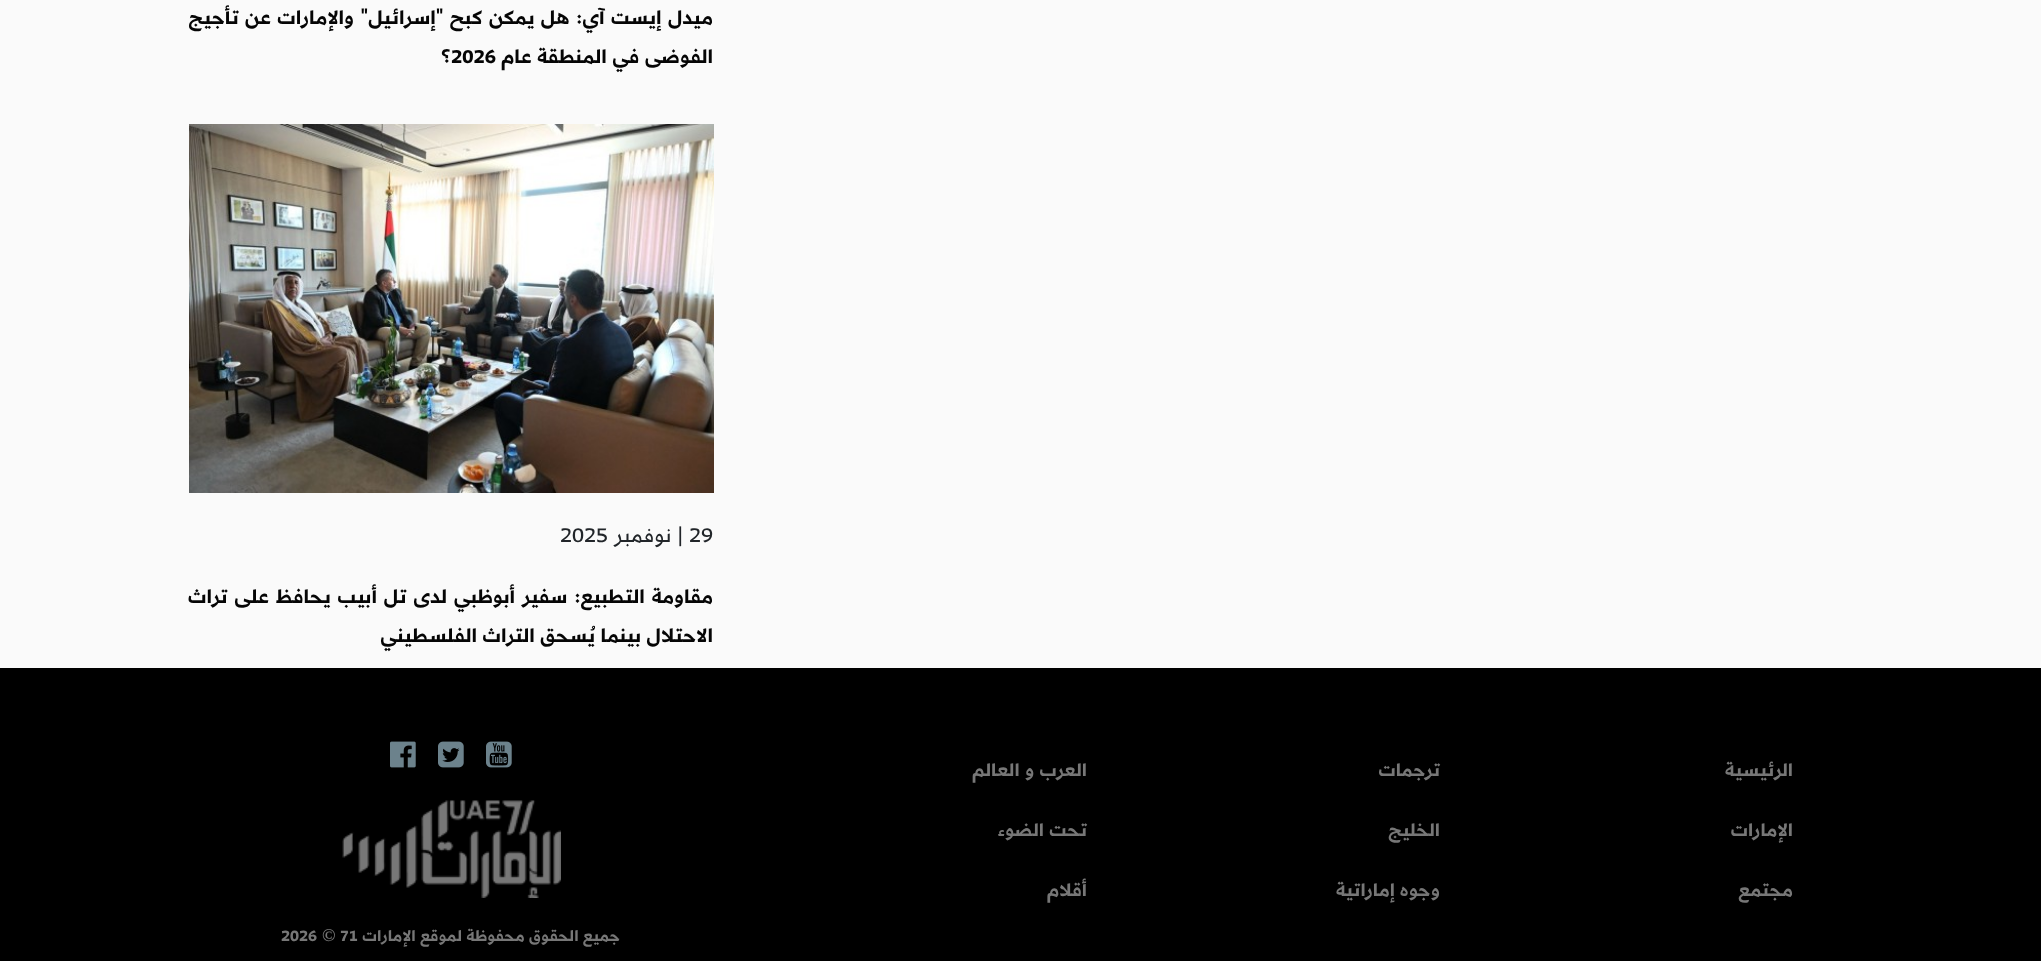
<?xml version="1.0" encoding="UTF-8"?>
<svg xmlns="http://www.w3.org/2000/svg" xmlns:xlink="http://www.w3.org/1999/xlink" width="2041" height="961">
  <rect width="100%" height="100%" fill="#fafafa" />
  <image x="189" y="124" width="525" height="369" xlink:href="image1.png" />
  <rect y="668" width="2041" height="293" fill="#000000" />
  <image x="486" y="741" width="26" height="27" xlink:href="image2.png" />
  <image x="438" y="741" width="26" height="27" xlink:href="image3.png" />
  <image x="390" y="741" width="26" height="27" xlink:href="image4.png" />
  <image x="342" y="800" width="219" height="98" xlink:href="image5.png" />
  <text x="713" y="24" word-spacing="0.75" style="font-family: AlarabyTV; font-size: 22.5px; font-weight: bold; direction: rtl; fill: #050505">ميدل إيست آي: هل يمكن كبح "إسرائيل" والإمارات عن تأجيج</text>
  <text x="713" y="63" style="font-family: AlarabyTV; font-size: 22.5px; font-weight: bold; direction: rtl; fill: #050505">الفوضى في المنطقة عام</text>
  <text x="451" y="63" style="font-family: AlarabyTV; font-size: 22.5px; font-weight: bold; fill: #050505">2026</text>
  <text x="451" y="63" style="font-family: AlarabyTV; font-size: 22.5px; font-weight: bold; direction: rtl; fill: #050505">؟</text>
  <text x="689" y="542" style="font-family: AlarabyTV; font-size: 24px; fill: #212529">29</text>
  <text x="683" y="542" style="font-family: AlarabyTV; font-size: 24px; direction: rtl; fill: #212529">| نوفمبر</text>
  <text x="560" y="542" style="font-family: AlarabyTV; font-size: 24px; fill: #212529">2025</text>
  <text x="713" y="603" word-spacing="1.25" style="font-family: AlarabyTV; font-size: 22.5px; font-weight: bold; direction: rtl; fill: #050505">مقاومة التطبيع: سفير أبوظبي لدى تل أبيب يحافظ على تراث</text>
  <text x="713" y="642" style="font-family: AlarabyTV; font-size: 22.5px; font-weight: bold; direction: rtl; fill: #050505">الاحتلال بينما يُسحق التراث الفلسطيني</text>
  <text x="1793" y="776" style="font-family: AlarabyTV; font-size: 21px; font-weight: bold; direction: rtl; fill: #777777">الرئيسية</text>
  <text x="1440" y="776" style="font-family: AlarabyTV; font-size: 21px; font-weight: bold; direction: rtl; fill: #777777">ترجمات</text>
  <text x="1087" y="776" style="font-family: AlarabyTV; font-size: 21px; font-weight: bold; direction: rtl; fill: #777777">العرب و العالم</text>
  <text x="1793" y="836" style="font-family: AlarabyTV; font-size: 21px; font-weight: bold; direction: rtl; fill: #777777">الإمارات</text>
  <text x="1440" y="836" style="font-family: AlarabyTV; font-size: 21px; font-weight: bold; direction: rtl; fill: #777777">الخليج</text>
  <text x="1087" y="836" style="font-family: AlarabyTV; font-size: 21px; font-weight: bold; direction: rtl; fill: #777777">تحت الضوء</text>
  <text x="1793" y="896" style="font-family: AlarabyTV; font-size: 21px; font-weight: bold; direction: rtl; fill: #777777">مجتمع</text>
  <text x="1440" y="896" style="font-family: AlarabyTV; font-size: 21px; font-weight: bold; direction: rtl; fill: #777777">وجوه إماراتية</text>
  <text x="1087" y="896" style="font-family: AlarabyTV; font-size: 21px; font-weight: bold; direction: rtl; fill: #777777">أقلام</text>
  <text x="620" y="941" style="font-family: AlarabyTV; font-size: 18px; font-weight: bold; direction: rtl; fill: #777777">جميع الحقوق محفوظة لموقع الإمارات</text>
  <text x="340" y="941" style="font-family: AlarabyTV; font-size: 18px; font-weight: bold; fill: #777777">71</text>
  <text x="322" y="941" style="font-family: Liberation Serif; font-size: 18px; font-weight: bold; fill: #777777">©</text>
  <text x="281" y="941" style="font-family: AlarabyTV; font-size: 18px; font-weight: bold; fill: #777777">2026</text>
</svg>
